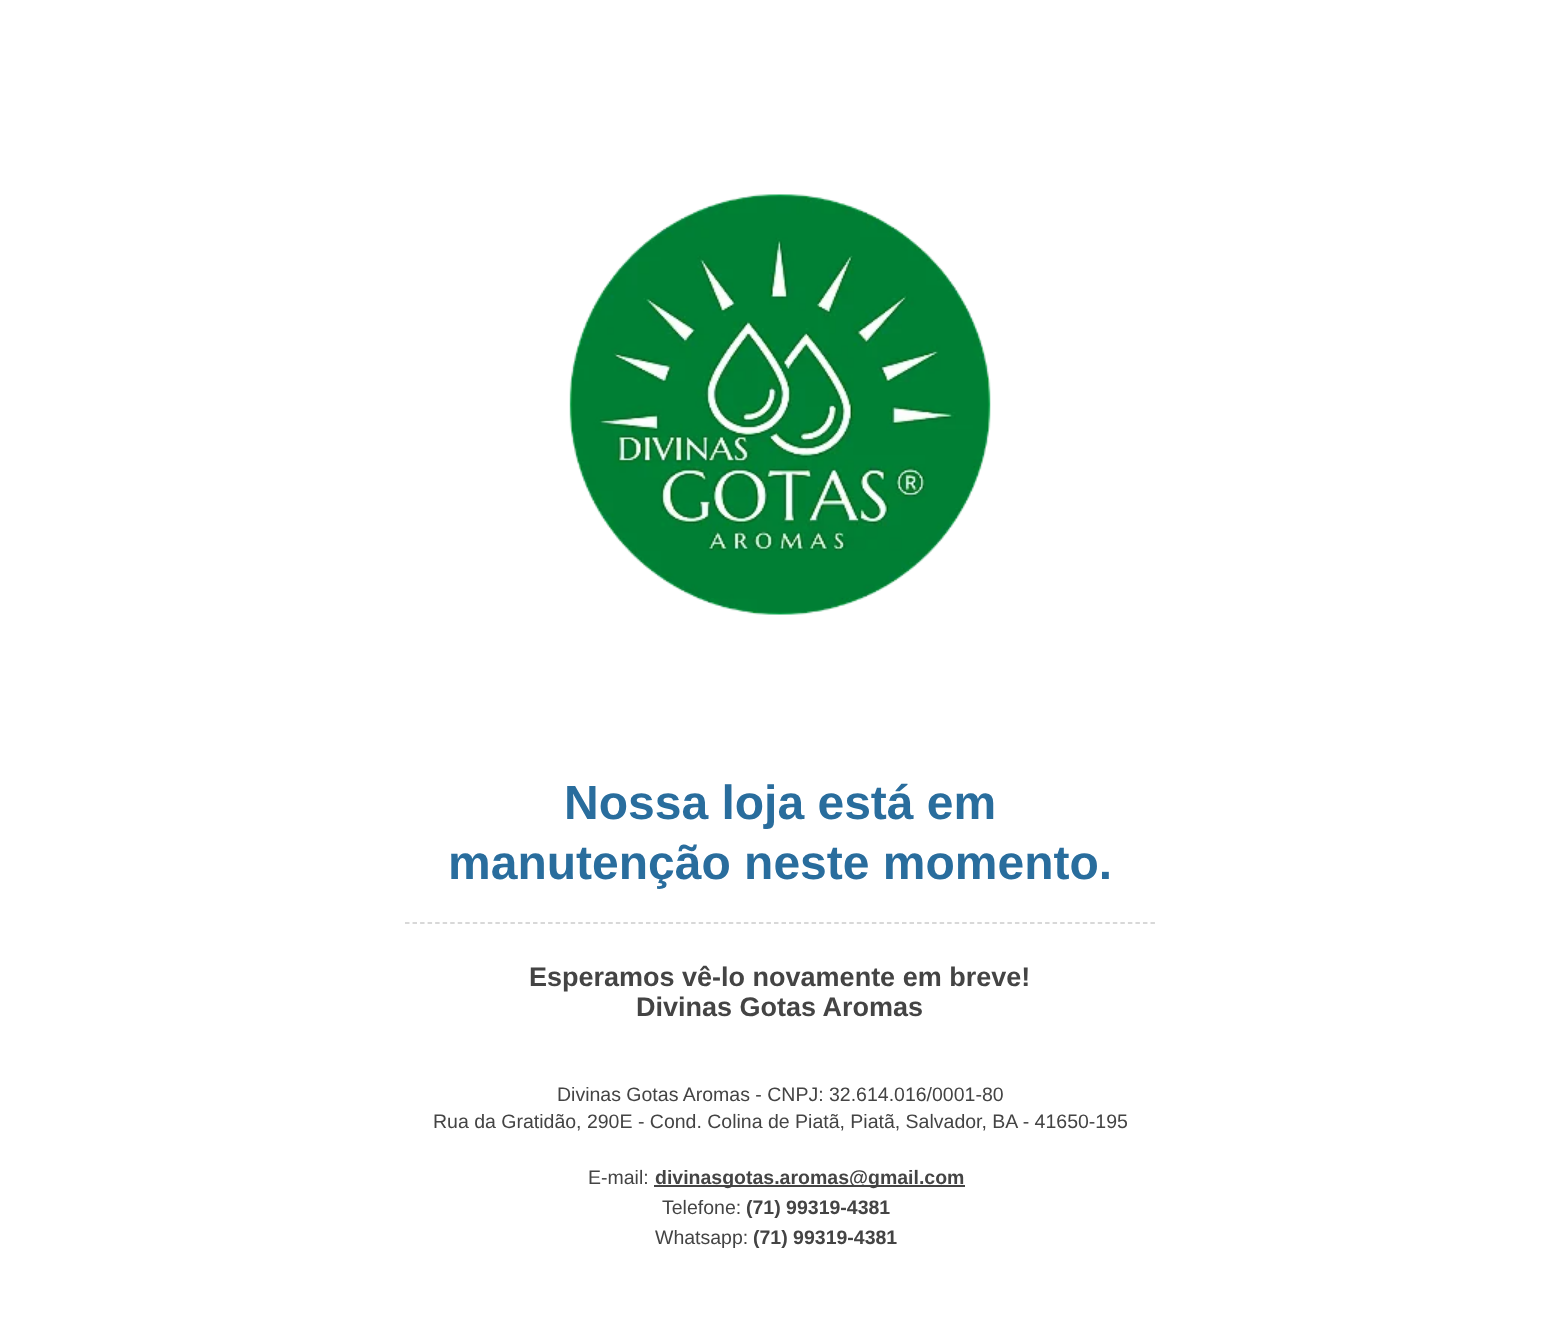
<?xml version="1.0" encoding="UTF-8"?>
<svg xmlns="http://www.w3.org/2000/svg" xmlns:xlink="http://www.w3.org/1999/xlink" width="1560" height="1324">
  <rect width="100%" height="100%" fill="#ffffff" />
  <image x="569" y="194" width="422" height="421" xlink:href="image1.png" />
  <path d="M 405 923 h 750" fill="none" stroke="#cccccc" stroke-width="1.5" stroke-dasharray="4.5 3.03" />
  <rect x="654" y="1185" width="311" height="2" fill="#444444" />
  <text x="564" y="819" style="font-family: Liberation Sans; font-size: 48px; font-weight: bold; fill: #296d9d">Nossa loja está em</text>
  <text x="448" y="879" style="font-family: Liberation Sans; font-size: 48px; font-weight: bold; fill: #296d9d">manutenção neste momento.</text>
  <text x="529" y="986" style="font-family: Liberation Sans; font-size: 27px; font-weight: bold; fill: #444444">Esperamos vê-lo novamente em breve!</text>
  <text x="636" y="1016" style="font-family: Liberation Sans; font-size: 27px; font-weight: bold; fill: #444444">Divinas Gotas Aromas</text>
  <text x="557" y="1101" style="font-family: Liberation Sans; font-size: 19.5px; fill: #444444">Divinas Gotas Aromas - CNPJ: 32.614.016/0001-80</text>
  <text x="433" y="1128" style="font-family: Liberation Sans; font-size: 19.5px; fill: #444444">Rua da Gratidão, 290E - Cond. Colina de Piatã, Piatã, Salvador, BA - 41650-195</text>
  <text x="588" y="1184" style="font-family: Liberation Sans; font-size: 19.5px; fill: #444444">E-mail:</text>
  <text x="655" y="1184" style="font-family: Liberation Sans; font-size: 19.5px; font-weight: bold; fill: #444444">divinasgotas.aromas@gmail.com</text>
  <text x="662" y="1214" style="font-family: Liberation Sans; font-size: 19.5px; fill: #444444">Telefone:</text>
  <text x="746" y="1214" style="font-family: Liberation Sans; font-size: 19.5px; font-weight: bold; fill: #444444">(71) 99319-4381</text>
  <text x="655" y="1244" style="font-family: Liberation Sans; font-size: 19.5px; fill: #444444">Whatsapp:</text>
  <text x="753" y="1244" style="font-family: Liberation Sans; font-size: 19.5px; font-weight: bold; fill: #444444">(71) 99319-4381</text>
</svg>
